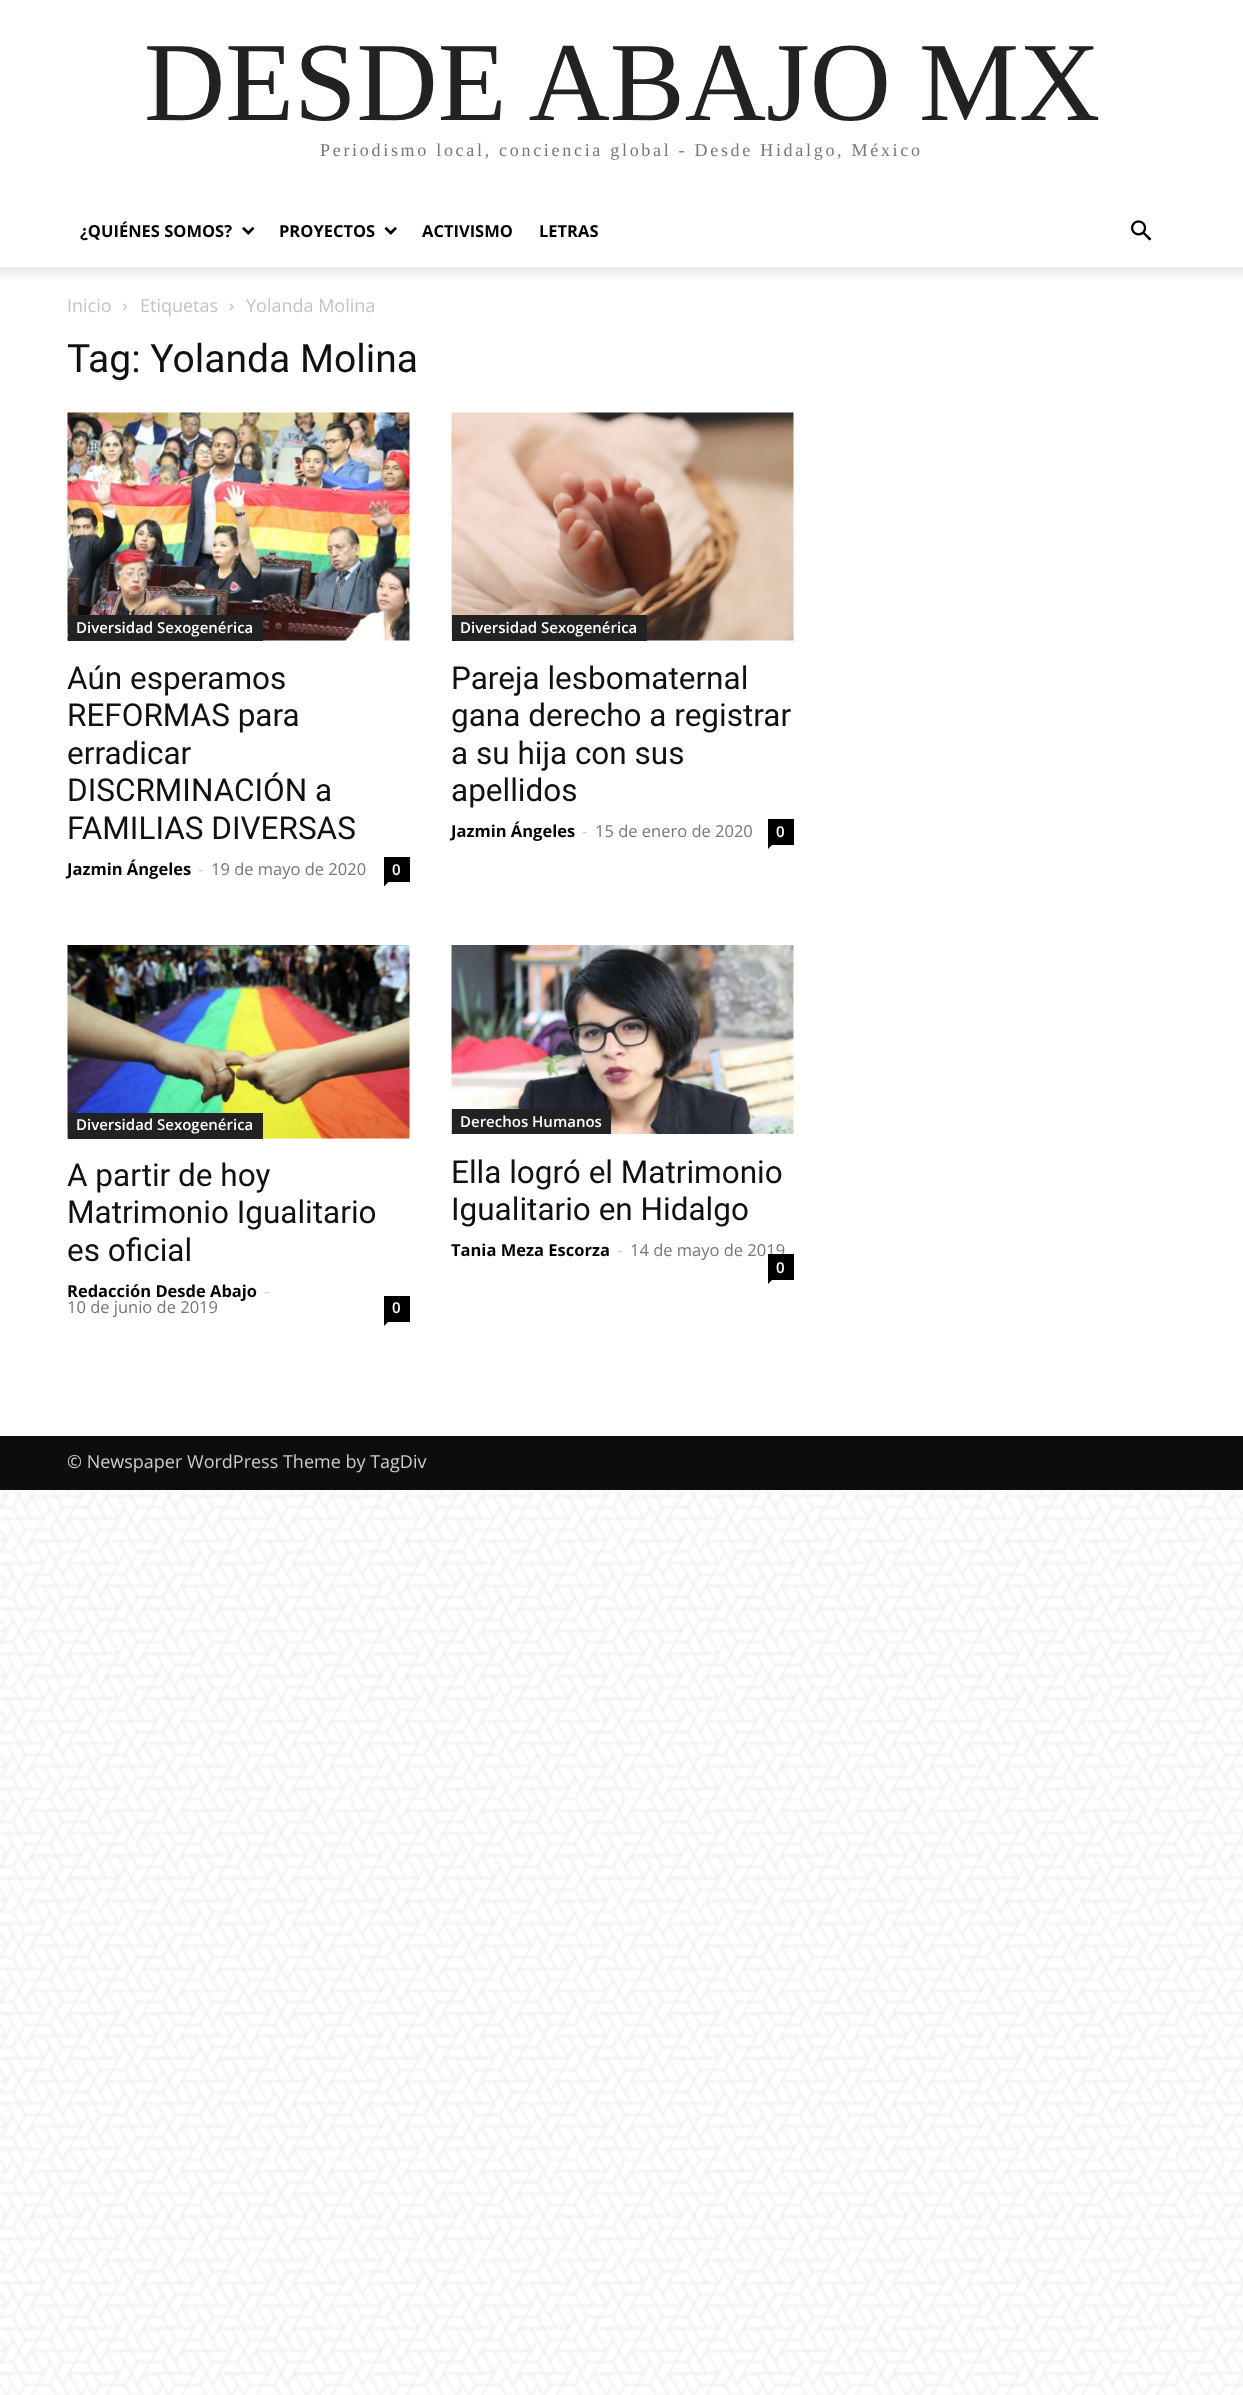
<?xml version="1.0" encoding="UTF-8"?>
<svg xmlns="http://www.w3.org/2000/svg" xmlns:xlink="http://www.w3.org/1999/xlink" width="1243" height="2395">
  <rect width="100%" height="100%" fill="#ffffff" />
  <image x="0" y="1490" width="1243" height="905" xlink:href="image1.png" />
  <image x="242" y="227" width="13" height="8" xlink:href="image2.png" />
  <image x="384" y="227" width="13" height="8" xlink:href="image3.png" />
  <image x="1131" y="220" width="20" height="21" xlink:href="image4.png" />
  <image x="0" y="267" width="1243" height="13" xlink:href="image5.png" />
  <image x="123" y="303" width="4" height="8" xlink:href="image6.png" />
  <image x="229" y="303" width="5" height="8" xlink:href="image7.png" />
  <image x="67" y="412" width="343" height="229" xlink:href="image8.png" />
  <rect x="68" y="615" width="195" height="26" fill="#222222" />
  <rect x="384" y="857" width="26" height="25" fill="#000000" />
  <path d="M 384 882 h 4.5 l -4.5 4.5 z" fill="#000000" />
  <image x="451" y="412" width="343" height="229" xlink:href="image9.png" />
  <rect x="452" y="615" width="195" height="26" fill="#222222" />
  <rect x="768" y="819" width="26" height="26" fill="#000000" />
  <path d="M 768 844.5 h 4.5 l -4.5 4.5 z" fill="#000000" />
  <image x="67" y="945" width="343" height="194" xlink:href="image10.png" />
  <rect x="68" y="1113" width="195" height="26" fill="#222222" />
  <rect x="384" y="1296" width="26" height="26" fill="#000000" />
  <path d="M 384 1321.5 h 4.5 l -4.5 4.5 z" fill="#000000" />
  <image x="451" y="945" width="343" height="189" xlink:href="image11.png" />
  <rect x="452" y="1109" width="159" height="25" fill="#222222" />
  <rect y="1436" width="1243" height="54" fill="#0d0d0d" />
  <text x="144" y="120" style="font-family: Liberation Serif; font-size: 112.5px; fill: #222222">DESDE ABAJO MX</text>
  <text x="320" y="156" style="font-family: Liberation Serif; font-size: 18px; letter-spacing: 2.7px; fill: #767676">Periodismo local, conciencia global - Desde Hidalgo, México</text>
  <text x="80" y="237" style="font-family: Open Sans; font-size: 16.5px; font-weight: bold; fill: #000000">¿QUIÉNES SOMOS?</text>
  <text x="279" y="237" style="font-family: Open Sans; font-size: 16.5px; font-weight: bold; fill: #000000">PROYECTOS</text>
  <text x="422" y="237" style="font-family: Open Sans; font-size: 16.5px; font-weight: bold; fill: #000000">ACTIVISMO</text>
  <text x="539" y="237" style="font-family: Open Sans; font-size: 16.5px; font-weight: bold; fill: #000000">LETRAS</text>
  <text x="67" y="312" style="font-family: Open Sans; font-size: 18px; fill: #c3c3c3">Inicio</text>
  <text x="140" y="312" style="font-family: Open Sans; font-size: 18px; fill: #c3c3c3">Etiquetas</text>
  <text x="246" y="312" style="font-family: Open Sans; font-size: 18px; fill: #c3c3c3">Yolanda Molina</text>
  <text x="67" y="372" style="font-family: Roboto; font-size: 39px; fill: #111111">Tag: Yolanda Molina</text>
  <text x="76" y="633" style="font-family: Open Sans; font-size: 15px; font-weight: 600; fill: #ffffff">Diversidad Sexogenérica</text>
  <text x="67" y="689" style="font-family: Roboto; font-size: 31.5px; fill: #111111">Aún esperamos</text>
  <text x="67" y="726" style="font-family: Roboto; font-size: 31.5px; fill: #111111">REFORMAS para</text>
  <text x="67" y="764" style="font-family: Roboto; font-size: 31.5px; fill: #111111">erradicar</text>
  <text x="67" y="801" style="font-family: Roboto; font-size: 31.5px; fill: #111111">DISCRMINACIÓN a</text>
  <text x="67" y="839" style="font-family: Roboto; font-size: 31.5px; fill: #111111">FAMILIAS DIVERSAS</text>
  <text x="67" y="875" style="font-family: Open Sans; font-size: 16.5px; font-weight: bold; fill: #000000">Jazmin Ángeles</text>
  <text x="198" y="875" style="font-family: Open Sans; font-size: 16.5px; fill: #cccccc">-</text>
  <text x="211" y="875" style="font-family: Open Sans; font-size: 16.5px; fill: #767676">19 de mayo de 2020</text>
  <text x="392" y="875" style="font-family: Open Sans; font-size: 15px; font-weight: 600; fill: #ffffff">0</text>
  <text x="460" y="633" style="font-family: Open Sans; font-size: 15px; font-weight: 600; fill: #ffffff">Diversidad Sexogenérica</text>
  <text x="451" y="689" style="font-family: Roboto; font-size: 31.5px; fill: #111111">Pareja lesbomaternal</text>
  <text x="451" y="726" style="font-family: Roboto; font-size: 31.5px; fill: #111111">gana derecho a registrar</text>
  <text x="451" y="764" style="font-family: Roboto; font-size: 31.5px; fill: #111111">a su hija con sus</text>
  <text x="451" y="801" style="font-family: Roboto; font-size: 31.5px; fill: #111111">apellidos</text>
  <text x="451" y="837" style="font-family: Open Sans; font-size: 16.5px; font-weight: bold; fill: #000000">Jazmin Ángeles</text>
  <text x="582" y="837" style="font-family: Open Sans; font-size: 16.5px; fill: #cccccc">-</text>
  <text x="595" y="837" style="font-family: Open Sans; font-size: 16.5px; fill: #767676">15 de enero de 2020</text>
  <text x="776" y="837" style="font-family: Open Sans; font-size: 15px; font-weight: 600; fill: #ffffff">0</text>
  <text x="76" y="1130" style="font-family: Open Sans; font-size: 15px; font-weight: 600; fill: #ffffff">Diversidad Sexogenérica</text>
  <text x="67" y="1186" style="font-family: Roboto; font-size: 31.5px; fill: #111111">A partir de hoy</text>
  <text x="67" y="1223" style="font-family: Roboto; font-size: 31.5px; fill: #111111">Matrimonio Igualitario</text>
  <text x="67" y="1261" style="font-family: Roboto; font-size: 31.5px; fill: #111111">es oficial</text>
  <text x="67" y="1297" style="font-family: Open Sans; font-size: 16.5px; font-weight: bold; fill: #000000">Redacción Desde Abajo</text>
  <text x="264" y="1297" style="font-family: Open Sans; font-size: 16.5px; fill: #cccccc">-</text>
  <text x="67" y="1313" style="font-family: Open Sans; font-size: 16.5px; fill: #767676">10 de junio de 2019</text>
  <text x="392" y="1313" style="font-family: Open Sans; font-size: 15px; font-weight: 600; fill: #ffffff">0</text>
  <text x="460" y="1127" style="font-family: Open Sans; font-size: 15px; font-weight: 600; fill: #ffffff">Derechos Humanos</text>
  <text x="451" y="1183" style="font-family: Roboto; font-size: 31.5px; fill: #111111">Ella logró el Matrimonio</text>
  <text x="451" y="1220" style="font-family: Roboto; font-size: 31.5px; fill: #111111">Igualitario en Hidalgo</text>
  <text x="451" y="1256" style="font-family: Open Sans; font-size: 16.5px; font-weight: bold; fill: #000000">Tania Meza Escorza</text>
  <text x="617" y="1256" style="font-family: Open Sans; font-size: 16.5px; fill: #cccccc">-</text>
  <text x="630" y="1256" style="font-family: Open Sans; font-size: 16.5px; fill: #767676">14 de mayo de 2019</text>
  <rect x="768" y="1254" width="26" height="26" fill="#000000" />
  <text x="776" y="1273" style="font-family: Open Sans; font-size: 15px; font-weight: 600; fill: #ffffff">0</text>
  <path d="M 768 1279.5 h 4.5 l -4.5 4.5 z" fill="#000000" />
  <text x="67" y="1468" style="font-family: Open Sans; font-size: 18px; fill: #cccccc">© Newspaper WordPress Theme by TagDiv</text>
</svg>
